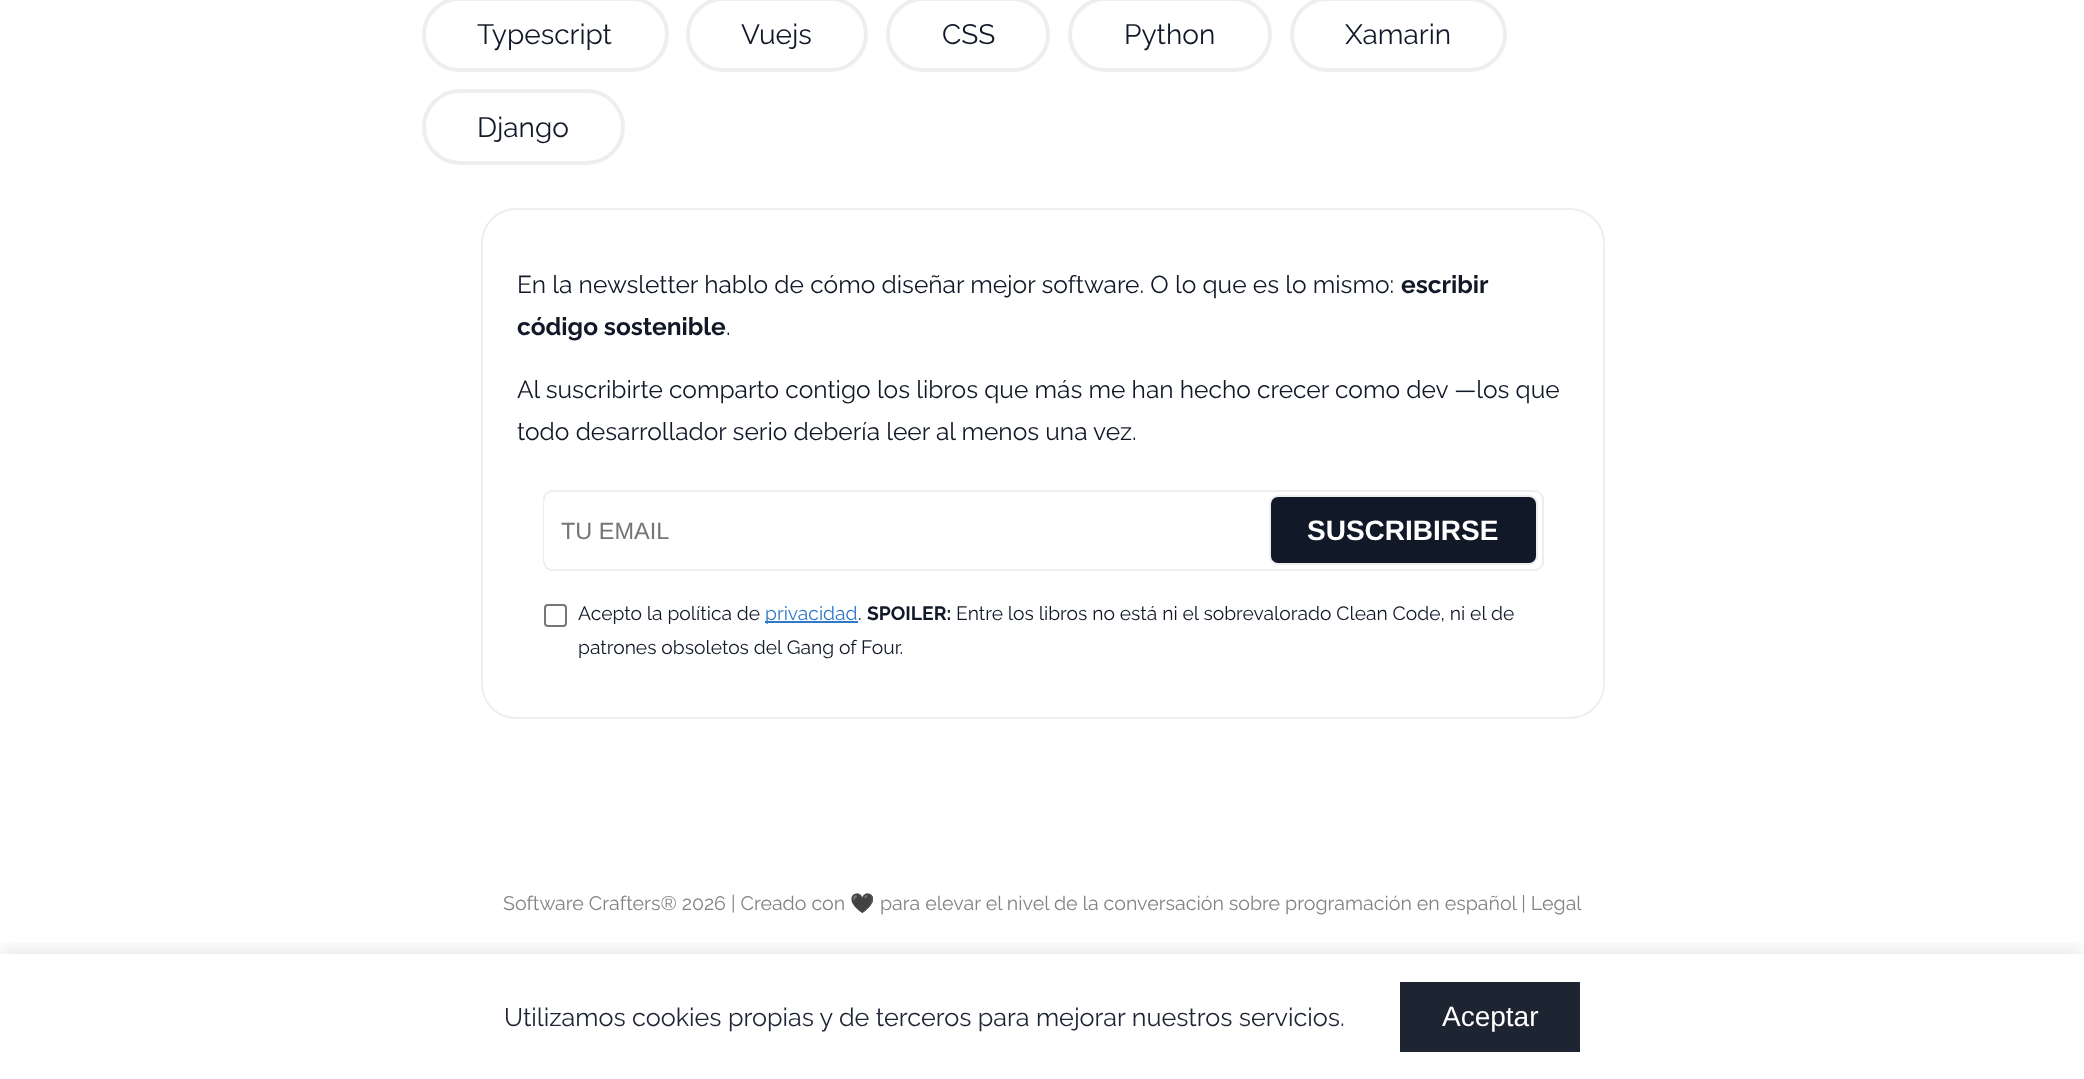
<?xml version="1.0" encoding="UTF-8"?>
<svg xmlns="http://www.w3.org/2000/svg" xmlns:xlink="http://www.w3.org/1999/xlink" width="2084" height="1079">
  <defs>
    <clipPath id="clip1"><rect x="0" y="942" width="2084" height="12" /></clipPath>
  </defs>
  <rect width="100%" height="100%" fill="#ffffff" />
  <rect x="424" y="-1" width="243" height="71" rx="35.5" fill="none" stroke="#eeeeee" stroke-width="4" />
  <rect x="688" y="-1" width="178" height="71" rx="35.5" fill="none" stroke="#eeeeee" stroke-width="4" />
  <rect x="888" y="-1" width="160" height="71" rx="35.5" fill="none" stroke="#eeeeee" stroke-width="4" />
  <rect x="1070" y="-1" width="200" height="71" rx="35.5" fill="none" stroke="#eeeeee" stroke-width="4" />
  <rect x="1292" y="-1" width="213" height="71" rx="35.5" fill="none" stroke="#eeeeee" stroke-width="4" />
  <rect x="424" y="91" width="199" height="72" rx="36" fill="none" stroke="#eeeeee" stroke-width="4" />
  <rect x="482" y="209" width="1122" height="509" rx="34" fill="none" stroke="#eeeeee" stroke-width="2" />
  <rect x="544" y="491" width="999" height="79" rx="8" fill="none" stroke="#eeeeee" stroke-width="2" />
  <rect x="544" y="501" width="1" height="61" fill="#ffffff" />
  <rect x="1270" y="496" width="267" height="68" rx="8" fill="#111827" stroke="#eeeeee" stroke-width="2" />
  <rect x="545" y="605" width="21" height="21" rx="3" fill="none" stroke="#767676" stroke-width="2" />
  <rect x="765" y="621" width="93" height="2" fill="#2f79c8" />
  <g clip-path="url(#clip1)">
    <rect y="950" width="2084" height="126" fill="#0d0d0d" fill-opacity="0.1" filter="blur(9px)" />
  </g>
  <rect x="1400" y="982" width="180" height="70" fill="#1d2432" />
  <text x="477" y="44" style="font-family: Raleway; font-size: 28px; fill: #111827">Typescript</text>
  <text x="741" y="44" style="font-family: Raleway; font-size: 28px; fill: #111827">Vuejs</text>
  <text x="942" y="44" style="font-family: Raleway; font-size: 28px; fill: #111827">CSS</text>
  <text x="1124" y="44" style="font-family: Raleway; font-size: 28px; fill: #111827">Python</text>
  <text x="1345" y="44" style="font-family: Raleway; font-size: 28px; fill: #111827">Xamarin</text>
  <text x="477" y="137" style="font-family: Raleway; font-size: 28px; fill: #111827">Django</text>
  <text x="517" y="293" style="font-family: Raleway; font-size: 24.5px; fill: #111827">En la newsletter hablo de cómo diseñar mejor software. O lo que es lo mismo:</text>
  <text x="1401" y="293" style="font-family: Raleway; font-size: 24.5px; font-weight: bold; fill: #111827">escribir</text>
  <text x="517" y="335" style="font-family: Raleway; font-size: 24.5px; font-weight: bold; fill: #111827">código sostenible</text>
  <text x="726" y="335" style="font-family: Raleway; font-size: 24.5px; fill: #111827">.</text>
  <text x="517" y="398" style="font-family: Raleway; font-size: 24.5px; fill: #111827">Al suscribirte comparto contigo los libros que más me han hecho crecer como dev —los que</text>
  <text x="517" y="440" style="font-family: Raleway; font-size: 24.5px; fill: #111827">todo desarrollador serio debería leer al menos una vez.</text>
  <text x="561" y="539" style="font-family: Liberation Sans; font-size: 23.5px; fill: #757575">TU EMAIL</text>
  <text x="1307" y="540" style="font-family: Liberation Sans; font-size: 28px; font-weight: bold; fill: #ffffff">SUSCRIBIRSE</text>
  <text x="578" y="620" style="font-family: Raleway; font-size: 19.25px; fill: #111827">Acepto la política de</text>
  <text x="765" y="620" style="font-family: Raleway; font-size: 19.25px; fill: #2f79c8">privacidad</text>
  <text x="858" y="620" style="font-family: Raleway; font-size: 19.25px; fill: #111827">.</text>
  <text x="867" y="620" style="font-family: Raleway; font-size: 19.25px; font-weight: bold; fill: #111827">SPOILER:</text>
  <text x="956" y="620" style="font-family: Raleway; font-size: 19.25px; fill: #111827">Entre los libros no está ni el sobrevalorado Clean Code, ni el de</text>
  <text x="578" y="654" style="font-family: Raleway; font-size: 19.25px; fill: #111827">patrones obsoletos del Gang of Four.</text>
  <text x="503" y="910" style="font-family: Raleway; font-size: 19.6px; fill: #838383">Software Crafters® 2026 | Creado con</text>
  <text x="850" y="910" style="font-family: Noto Color Emoji; font-size: 19.6px; fill: #838383">🖤</text>
  <text x="880" y="910" style="font-family: Raleway; font-size: 19.6px; fill: #838383">para elevar el nivel de la conversación sobre programación en español | Legal</text>
  <text x="504" y="1026" style="font-family: Raleway; font-size: 25.2px; fill: #1d2432">Utilizamos cookies propias y de terceros para mejorar nuestros servicios.</text>
  <text x="1442" y="1026" style="font-family: Liberation Sans; font-size: 28px; fill: #ffffff">Aceptar</text>
</svg>
